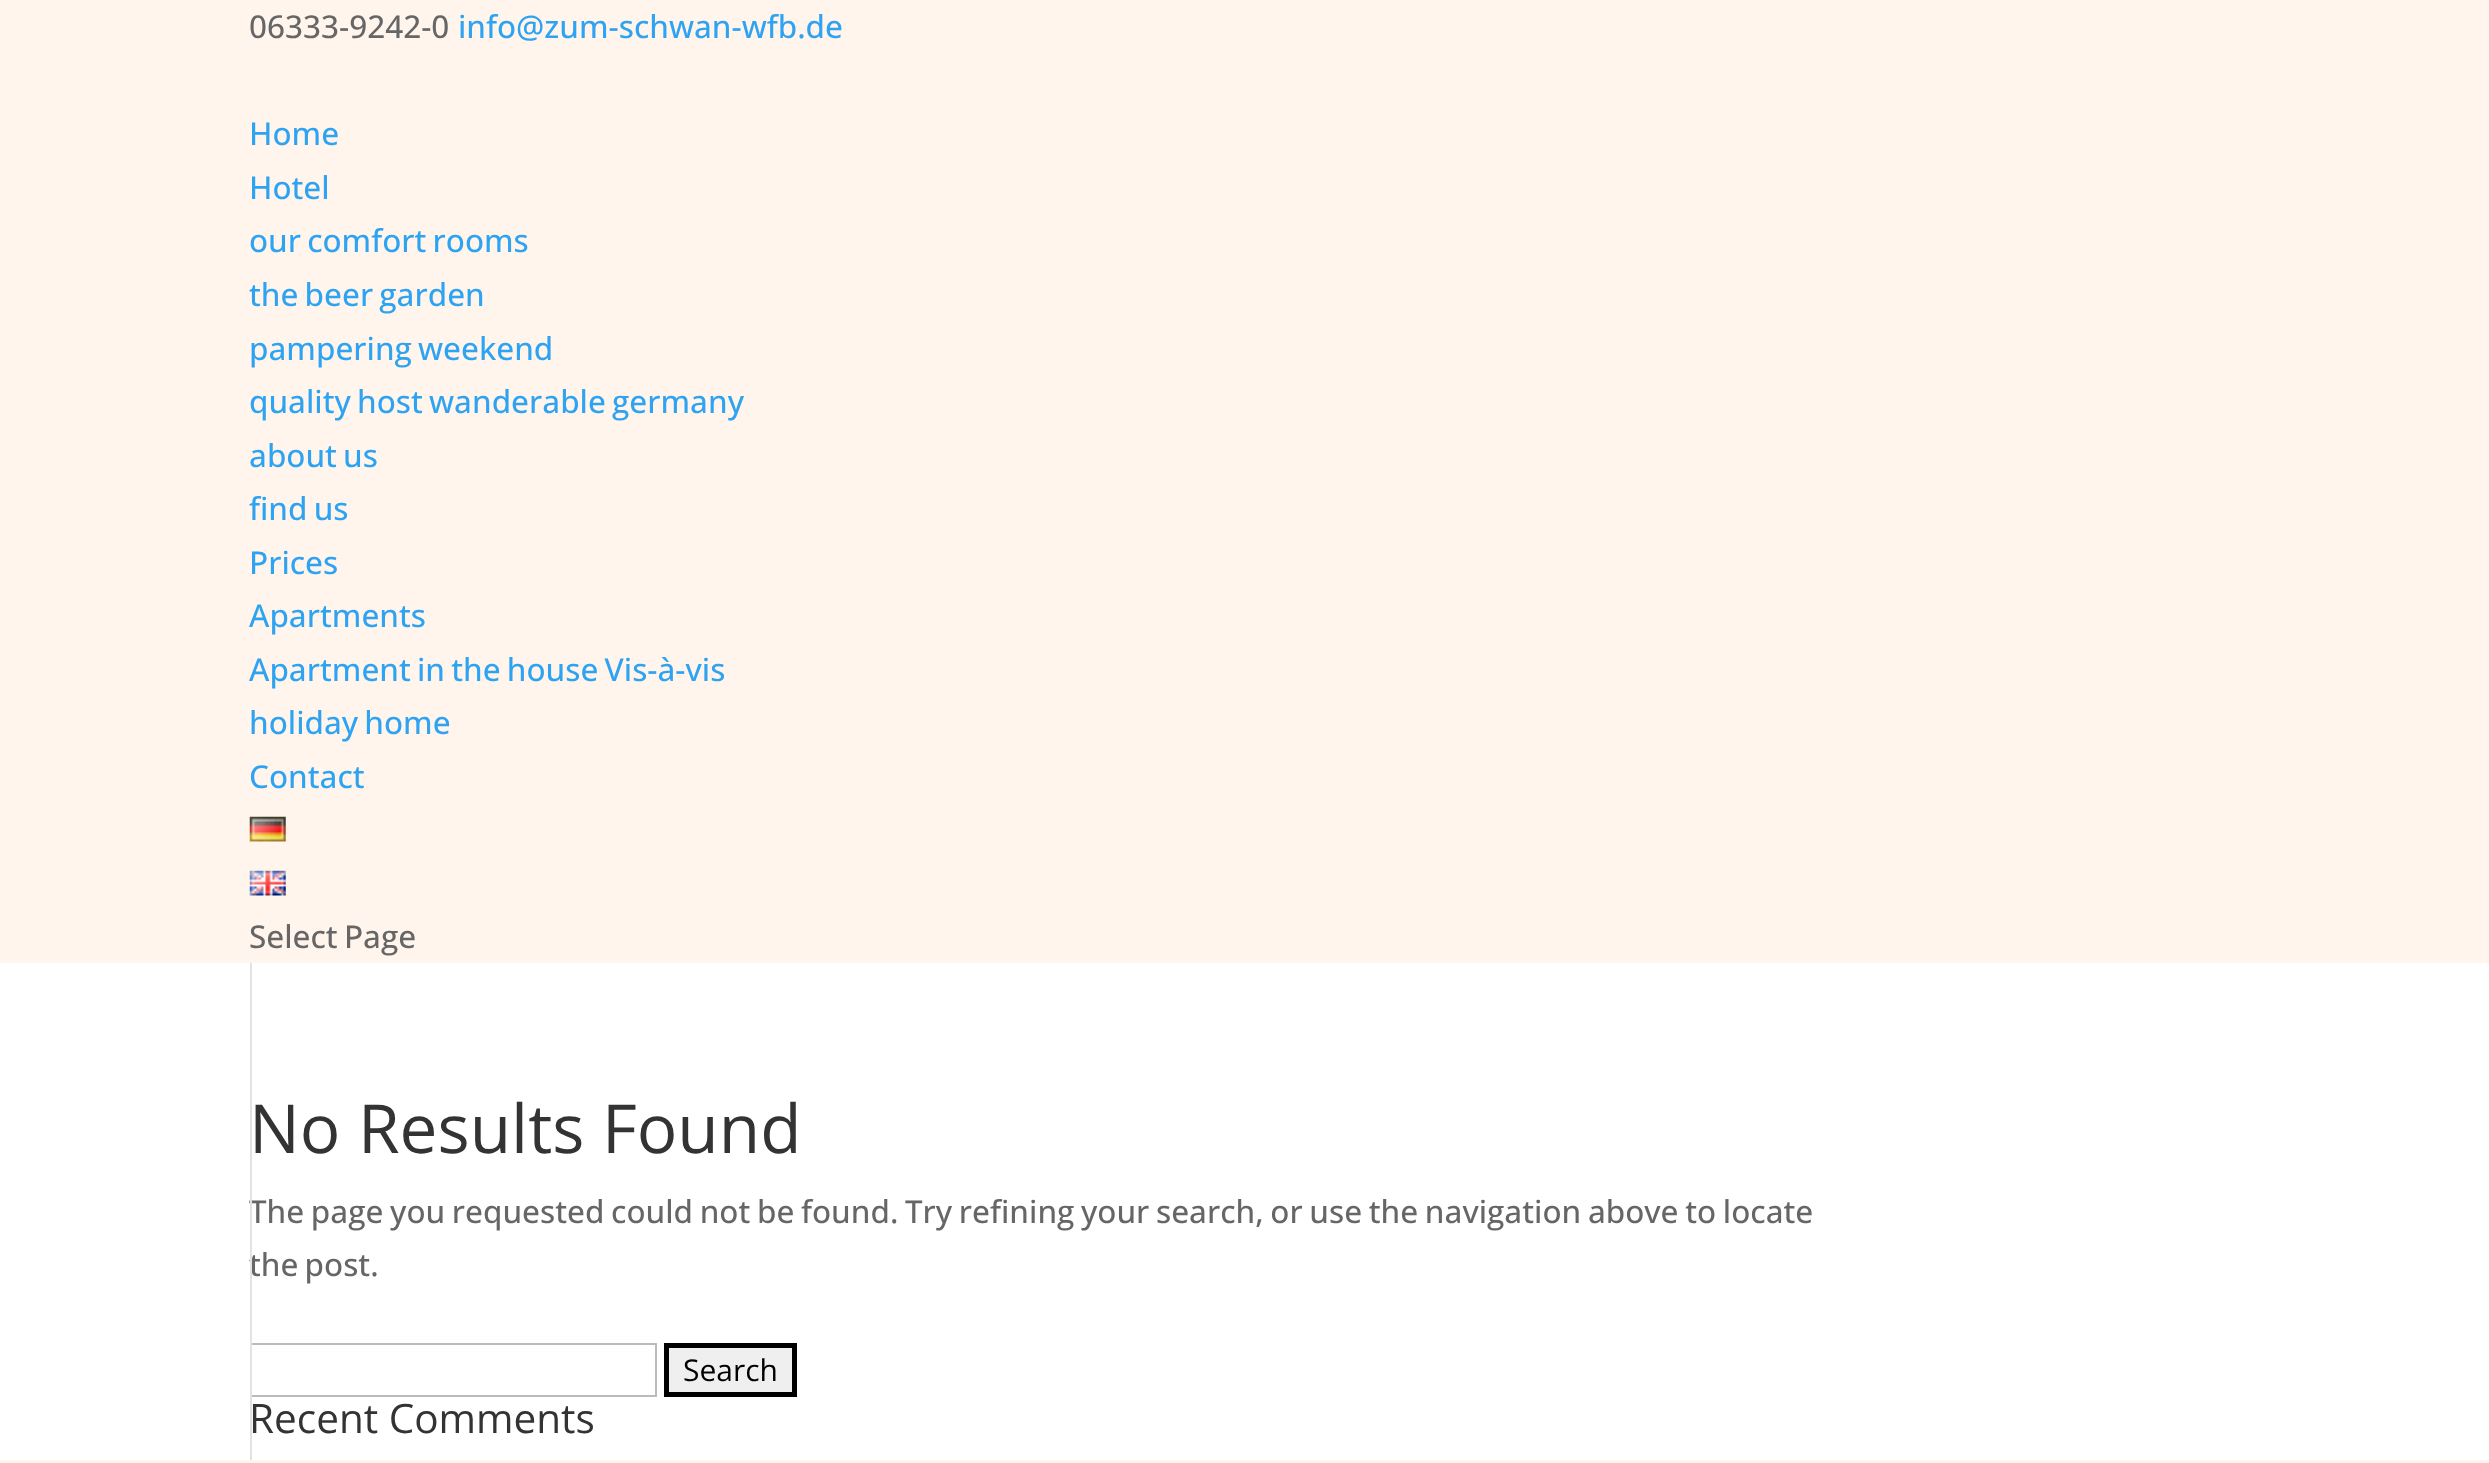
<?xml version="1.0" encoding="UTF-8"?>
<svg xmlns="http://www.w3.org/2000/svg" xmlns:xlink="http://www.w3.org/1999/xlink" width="2489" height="1463">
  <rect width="100%" height="100%" fill="#fff5ec" />
  <image x="249" y="816" width="37" height="26" xlink:href="image1.png" />
  <image x="249" y="870" width="37" height="26" xlink:href="image2.png" />
  <rect y="963" width="2489" height="497" fill="#ffffff" />
  <rect x="251" y="1344" width="405" height="52" fill="none" stroke="#bbbbbb" stroke-width="2" />
  <rect x="666.5" y="1345.5" width="128" height="49" fill="#efefef" stroke="#000000" stroke-width="5" />
  <text x="249" y="38" style="font-family: Open Sans; font-size: 31.5px; font-weight: 500; fill: #666666">06333-9242-0</text>
  <text x="458" y="38" style="font-family: Open Sans; font-size: 31.5px; font-weight: 500; fill: #2ea3f2">info@zum-schwan-wfb.de</text>
  <text x="249" y="145" style="font-family: Open Sans; font-size: 31.5px; font-weight: 500; fill: #2ea3f2">Home</text>
  <text x="249" y="199" style="font-family: Open Sans; font-size: 31.5px; font-weight: 500; fill: #2ea3f2">Hotel</text>
  <text x="249" y="252" word-spacing="-2" style="font-family: Open Sans; font-size: 31.5px; font-weight: 500; fill: #2ea3f2">our comfort rooms</text>
  <text x="249" y="306" word-spacing="-2" style="font-family: Open Sans; font-size: 31.5px; font-weight: 500; fill: #2ea3f2">the beer garden</text>
  <text x="249" y="360" word-spacing="-2" style="font-family: Open Sans; font-size: 31.5px; font-weight: 500; fill: #2ea3f2">pampering weekend</text>
  <text x="249" y="413" word-spacing="-2" style="font-family: Open Sans; font-size: 31.5px; font-weight: 500; fill: #2ea3f2">quality host wanderable germany</text>
  <text x="249" y="467" word-spacing="-2" style="font-family: Open Sans; font-size: 31.5px; font-weight: 500; fill: #2ea3f2">about us</text>
  <text x="249" y="520" word-spacing="-2" style="font-family: Open Sans; font-size: 31.5px; font-weight: 500; fill: #2ea3f2">find us</text>
  <text x="249" y="574" style="font-family: Open Sans; font-size: 31.5px; font-weight: 500; fill: #2ea3f2">Prices</text>
  <text x="249" y="627" style="font-family: Open Sans; font-size: 31.5px; font-weight: 500; fill: #2ea3f2">Apartments</text>
  <text x="249" y="681" word-spacing="-2" style="font-family: Open Sans; font-size: 31.5px; font-weight: 500; fill: #2ea3f2">Apartment in the house Vis-à-vis</text>
  <text x="249" y="734" word-spacing="-2" style="font-family: Open Sans; font-size: 31.5px; font-weight: 500; fill: #2ea3f2">holiday home</text>
  <text x="249" y="788" style="font-family: Open Sans; font-size: 31.5px; font-weight: 500; fill: #2ea3f2">Contact</text>
  <text x="249" y="948" word-spacing="-2" style="font-family: Open Sans; font-size: 31.5px; font-weight: 500; fill: #666666">Select Page</text>
  <text x="249" y="1153" style="font-family: Open Sans; font-size: 67.5px; fill: #333333">No Results Found</text>
  <text x="249" y="1223" word-spacing="-1.5" style="font-family: Open Sans; font-size: 31.5px; font-weight: 500; fill: #666666">The page you requested could not be found. Try refining your search, or use the navigation above to locate</text>
  <text x="249" y="1276" word-spacing="-2" style="font-family: Open Sans; font-size: 31.5px; font-weight: 500; fill: #666666">the post.</text>
  <rect x="250" y="963" width="2" height="497" fill="#e2e2e2" />
  <text x="683" y="1381" style="font-family: Open Sans; font-size: 30px; fill: #000000">Search</text>
  <text x="249" y="1433" style="font-family: Open Sans; font-size: 40.5px; fill: #333333">Recent Comments</text>
</svg>
